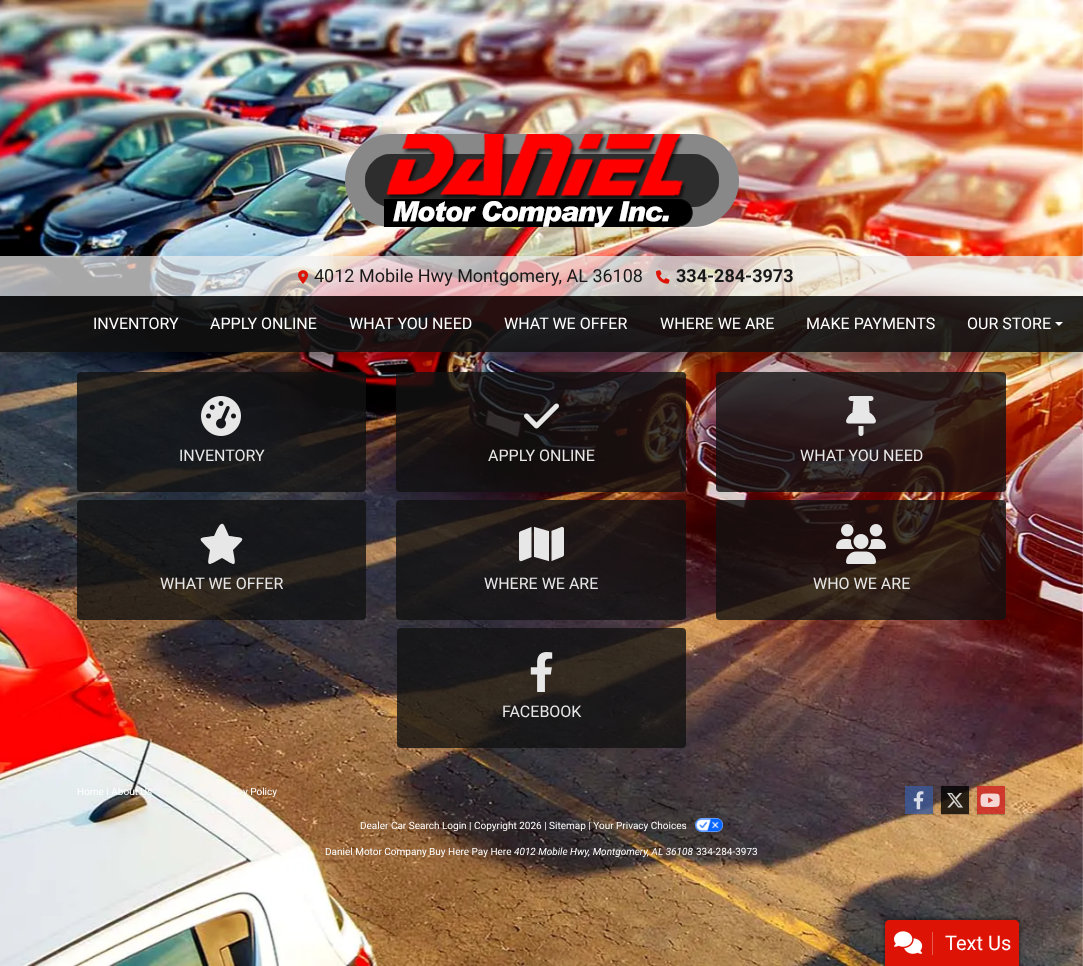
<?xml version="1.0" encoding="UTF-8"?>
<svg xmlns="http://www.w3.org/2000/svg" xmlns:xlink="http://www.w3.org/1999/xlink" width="1083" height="966">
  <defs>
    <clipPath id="clip1"><rect x="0" y="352" width="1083" height="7" /></clipPath>
    <clipPath id="clip2"><rect x="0" y="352" width="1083" height="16" /></clipPath>
    <clipPath id="clip3"><rect x="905" y="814" width="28" height="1" /></clipPath>
    <clipPath id="clip4"><path d="M 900 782 h 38 v 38 h -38 z m 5 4 h 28 v 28 h -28 z" clip-rule="evenodd" /></clipPath>
    <clipPath id="clip5"><rect x="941" y="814" width="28" height="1" /></clipPath>
    <clipPath id="clip6"><path d="M 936 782 h 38 v 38 h -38 z m 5 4 h 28 v 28 h -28 z" clip-rule="evenodd" /></clipPath>
    <clipPath id="clip7"><rect x="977" y="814" width="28" height="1" /></clipPath>
    <clipPath id="clip8"><path d="M 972 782 h 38 v 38 h -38 z m 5 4 h 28 v 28 h -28 z" clip-rule="evenodd" /></clipPath>
  </defs>
  <rect width="100%" height="100%" fill="#ffffff" />
  <image x="0" y="0" width="1083" height="966" xlink:href="image1.png" />
  <image x="345" y="134" width="394" height="94" xlink:href="image2.png" />
  <g clip-path="url(#clip1)">
    <rect y="301" width="1083" height="56" fill="#000000" fill-opacity="0.1" filter="blur(2.5px)" />
  </g>
  <g clip-path="url(#clip2)">
    <rect y="306" width="1083" height="56" fill="#000000" fill-opacity="0.2" filter="blur(5px)" />
  </g>
  <rect y="256" width="1083" height="40" fill="#eeeeee" fill-opacity="0.7" />
  <image x="298" y="270" width="11" height="14" xlink:href="image3.png" />
  <image x="656" y="270" width="14" height="14" xlink:href="image4.png" />
  <rect y="296" width="1083" height="56" fill="#111111" fill-opacity="0.9" />
  <path d="M 1055 322 h 8 l -4 4 z" fill="#ffffff" />
  <rect x="77" y="372" width="289" height="120" rx="4" fill="#111111" fill-opacity="0.8" />
  <image x="201" y="396" width="40" height="40" xlink:href="image5.png" />
  <rect x="396" y="372" width="290" height="120" rx="4" fill="#111111" fill-opacity="0.8" />
  <image x="524" y="403" width="35" height="26" xlink:href="image6.png" />
  <rect x="716" y="372" width="290" height="120" rx="4" fill="#111111" fill-opacity="0.8" />
  <image x="846" y="396" width="30" height="40" xlink:href="image7.png" />
  <rect x="77" y="500" width="289" height="120" rx="4" fill="#111111" fill-opacity="0.8" />
  <path d="M 224 525 c -4 -6 -9 10 -10 11 c -17 2 -17 1 -4 14 c -3 17 -4 17 12 8 c 15 9 14 9 11 -8 c 13 -13 13 -12 -4 -14 z" fill="#e7e7e7" />
  <rect x="396" y="500" width="290" height="120" rx="4" fill="#111111" fill-opacity="0.8" />
  <image x="519" y="526" width="45" height="36" xlink:href="image8.png" />
  <rect x="716" y="500" width="290" height="120" rx="4" fill="#111111" fill-opacity="0.8" />
  <image x="836" y="524" width="50" height="40" xlink:href="image9.png" />
  <rect x="397" y="628" width="289" height="120" rx="4" fill="#111111" fill-opacity="0.8" />
  <image x="530" y="652" width="23" height="40" xlink:href="image10.png" />
  <rect x="884" y="918" width="136" height="48" rx="5" fill="#000000" fill-opacity="0.25" filter="blur(1px)" />
  <rect x="883" y="917" width="138" height="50" rx="6" fill="#000000" fill-opacity="0.15" filter="blur(1.5px)" />
  <path d="M 889 920 h 126 c 2 0 4 2 4 4 v 42 h -134 v -42 c 0 -2 2 -4 4 -4 z" fill="#dd1305" />
  <rect x="932" y="932" width="1" height="23" fill="#e75a50" />
  <image x="894" y="931" width="29" height="23" xlink:href="image11.png" />
  <g clip-path="url(#clip3)">
    <rect x="905" y="787" width="28" height="28" fill="#000000" fill-opacity="0.16" filter="blur(0.5px)" />
  </g>
  <g clip-path="url(#clip4)">
    <rect x="904" y="786" width="30" height="30" fill="#000000" fill-opacity="0.08" filter="blur(1px)" />
  </g>
  <rect x="905" y="786" width="28" height="28" fill="#3b5998" fill-opacity="0.8" />
  <image x="913" y="791" width="11" height="19" xlink:href="image12.png" />
  <g clip-path="url(#clip5)">
    <rect x="941" y="787" width="28" height="28" fill="#000000" fill-opacity="0.16" filter="blur(0.5px)" />
  </g>
  <g clip-path="url(#clip6)">
    <rect x="940" y="786" width="30" height="30" fill="#000000" fill-opacity="0.08" filter="blur(1px)" />
  </g>
  <rect x="941" y="786" width="28" height="28" fill="#000000" fill-opacity="0.8" />
  <image x="947" y="792" width="16" height="16" xlink:href="image13.png" />
  <g clip-path="url(#clip7)">
    <rect x="977" y="787" width="28" height="28" fill="#000000" fill-opacity="0.16" filter="blur(0.5px)" />
  </g>
  <g clip-path="url(#clip8)">
    <rect x="976" y="786" width="30" height="30" fill="#000000" fill-opacity="0.08" filter="blur(1px)" />
  </g>
  <rect x="977" y="786" width="28" height="28" fill="#cd201f" fill-opacity="0.8" />
  <image x="980" y="793" width="20" height="14" xlink:href="image14.png" />
  <image x="695" y="818" width="28" height="14" xlink:href="image15.png" />
  <text x="314" y="282" style="font-family: Roboto; font-size: 18px; fill: #181818">4012 Mobile Hwy Montgomery, AL 36108</text>
  <text x="676" y="282" style="font-family: Roboto; font-size: 18px; font-weight: bold; fill: #181818">334-284-3973</text>
  <text x="93" y="329" style="font-family: Roboto; font-size: 16px; fill: #ffffff">INVENTORY</text>
  <text x="210" y="329" style="font-family: Roboto; font-size: 16px; fill: #ffffff">APPLY ONLINE</text>
  <text x="349" y="329" style="font-family: Roboto; font-size: 16px; fill: #ffffff">WHAT YOU NEED</text>
  <text x="504" y="329" style="font-family: Roboto; font-size: 16px; fill: #ffffff">WHAT WE OFFER</text>
  <text x="660" y="329" style="font-family: Roboto; font-size: 16px; fill: #ffffff">WHERE WE ARE</text>
  <text x="806" y="329" style="font-family: Roboto; font-size: 16px; fill: #ffffff">MAKE PAYMENTS</text>
  <text x="967" y="329" style="font-family: Roboto; font-size: 16px; fill: #ffffff">OUR STORE</text>
  <text x="179" y="461" style="font-family: Roboto; font-size: 16px; fill: #e7e7e7">INVENTORY</text>
  <text x="488" y="461" style="font-family: Roboto; font-size: 16px; fill: #e7e7e7">APPLY ONLINE</text>
  <text x="800" y="461" style="font-family: Roboto; font-size: 16px; fill: #e7e7e7">WHAT YOU NEED</text>
  <text x="160" y="589" style="font-family: Roboto; font-size: 16px; fill: #e7e7e7">WHAT WE OFFER</text>
  <text x="484" y="589" style="font-family: Roboto; font-size: 16px; fill: #e7e7e7">WHERE WE ARE</text>
  <text x="813" y="589" style="font-family: Roboto; font-size: 16px; fill: #e7e7e7">WHO WE ARE</text>
  <text x="502" y="717" style="font-family: Roboto; font-size: 16px; fill: #e7e7e7">FACEBOOK</text>
  <text x="945" y="950" style="font-family: Roboto; font-size: 20px; fill: #ffffff">Text Us</text>
  <text x="77" y="795" style="font-family: Roboto; font-size: 10px; fill: #ffffff">Home | About Us</text>
  <text x="243" y="795" style="font-family: Roboto; font-size: 10px; fill: #ffffff">y Policy</text>
  <text x="360" y="829" style="font-family: Roboto; font-size: 10px; fill: #ffffff">Dealer Car Search Login | Copyright 2026 | Sitemap | Your Privacy Choices</text>
  <text x="325" y="855" style="font-family: Roboto; font-size: 10px; fill: #ffffff">Daniel Motor Company Buy Here Pay Here</text>
  <text x="514" y="855" style="font-family: Roboto; font-size: 10px; font-style: italic; fill: #ffffff">4012 Mobile Hwy, Montgomery, AL 36108</text>
  <text x="696" y="855" style="font-family: Roboto; font-size: 10px; fill: #ffffff">334-284-3973</text>
</svg>
